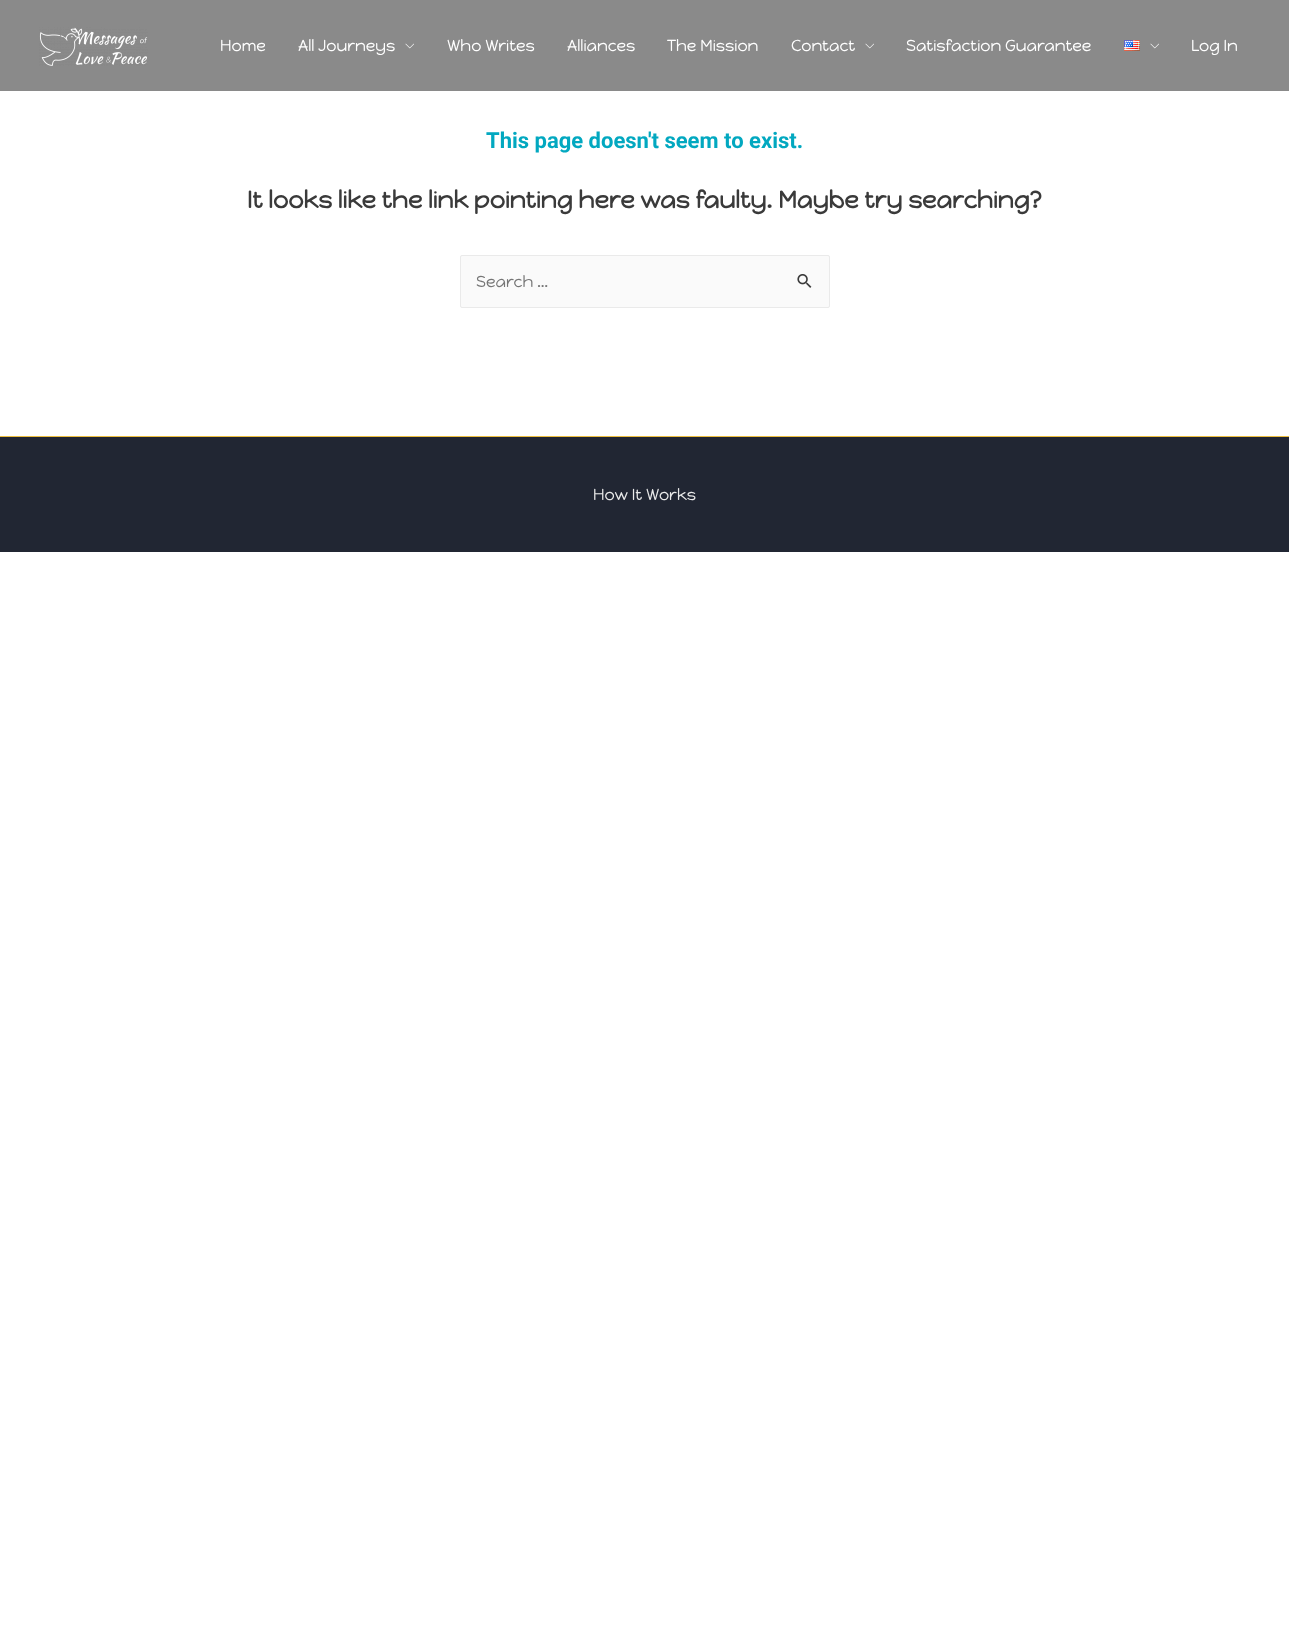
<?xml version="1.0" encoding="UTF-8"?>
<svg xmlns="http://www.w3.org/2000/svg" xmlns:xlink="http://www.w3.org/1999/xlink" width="1289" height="1636">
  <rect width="100%" height="100%" fill="#ffffff" />
  <rect width="1289" height="91" fill="#8a8a8a" />
  <image x="39" y="27" width="109" height="39" xlink:href="image1.png" />
  <image x="405" y="43" width="9" height="6" xlink:href="image2.png" />
  <image x="865" y="43" width="9" height="6" xlink:href="image2.png" />
  <image x="1124" y="40" width="16" height="11" xlink:href="image3.png" />
  <image x="1150" y="43" width="9" height="6" xlink:href="image2.png" />
  <rect x="460.5" y="255.5" width="369" height="52" rx="1.5" fill="#fafafa" stroke="#eaeaea" />
  <image x="797" y="274" width="15" height="14" xlink:href="image4.png" />
  <rect y="436" width="1289" height="1" fill="#edbe3e" />
  <rect y="437" width="1289" height="115" fill="#212633" />
  <text x="220" y="51" style="font-family: Happy Monkey; font-size: 16px; fill: #ffffff">Home</text>
  <text x="298" y="51" style="font-family: Happy Monkey; font-size: 16px; fill: #ffffff">All Journeys</text>
  <text x="447" y="51" style="font-family: Happy Monkey; font-size: 16px; fill: #ffffff">Who Writes</text>
  <text x="567" y="51" style="font-family: Happy Monkey; font-size: 16px; fill: #ffffff">Alliances</text>
  <text x="667" y="51" style="font-family: Happy Monkey; font-size: 16px; fill: #ffffff">The Mission</text>
  <text x="791" y="51" style="font-family: Happy Monkey; font-size: 16px; fill: #ffffff">Contact</text>
  <text x="906" y="51" style="font-family: Happy Monkey; font-size: 16px; fill: #ffffff">Satisfaction Guarantee</text>
  <text x="1191" y="51" style="font-family: Happy Monkey; font-size: 16px; fill: #ffffff">Log In</text>
  <text x="486" y="148" style="font-family: Roboto; font-size: 22px; font-weight: bold; fill: #02a8c0">This page doesn't seem to exist.</text>
  <text x="247" y="208" style="font-family: Happy Monkey; font-size: 24px; font-weight: bold; fill: #3a3a3a">It looks like the link pointing here was faulty. Maybe try searching?</text>
  <text x="476" y="287" style="font-family: Happy Monkey; font-size: 16px; fill: #757575">Search …</text>
  <text x="593" y="500" style="font-family: Happy Monkey; font-size: 16px; fill: #eaeaea">How It Works</text>
</svg>
